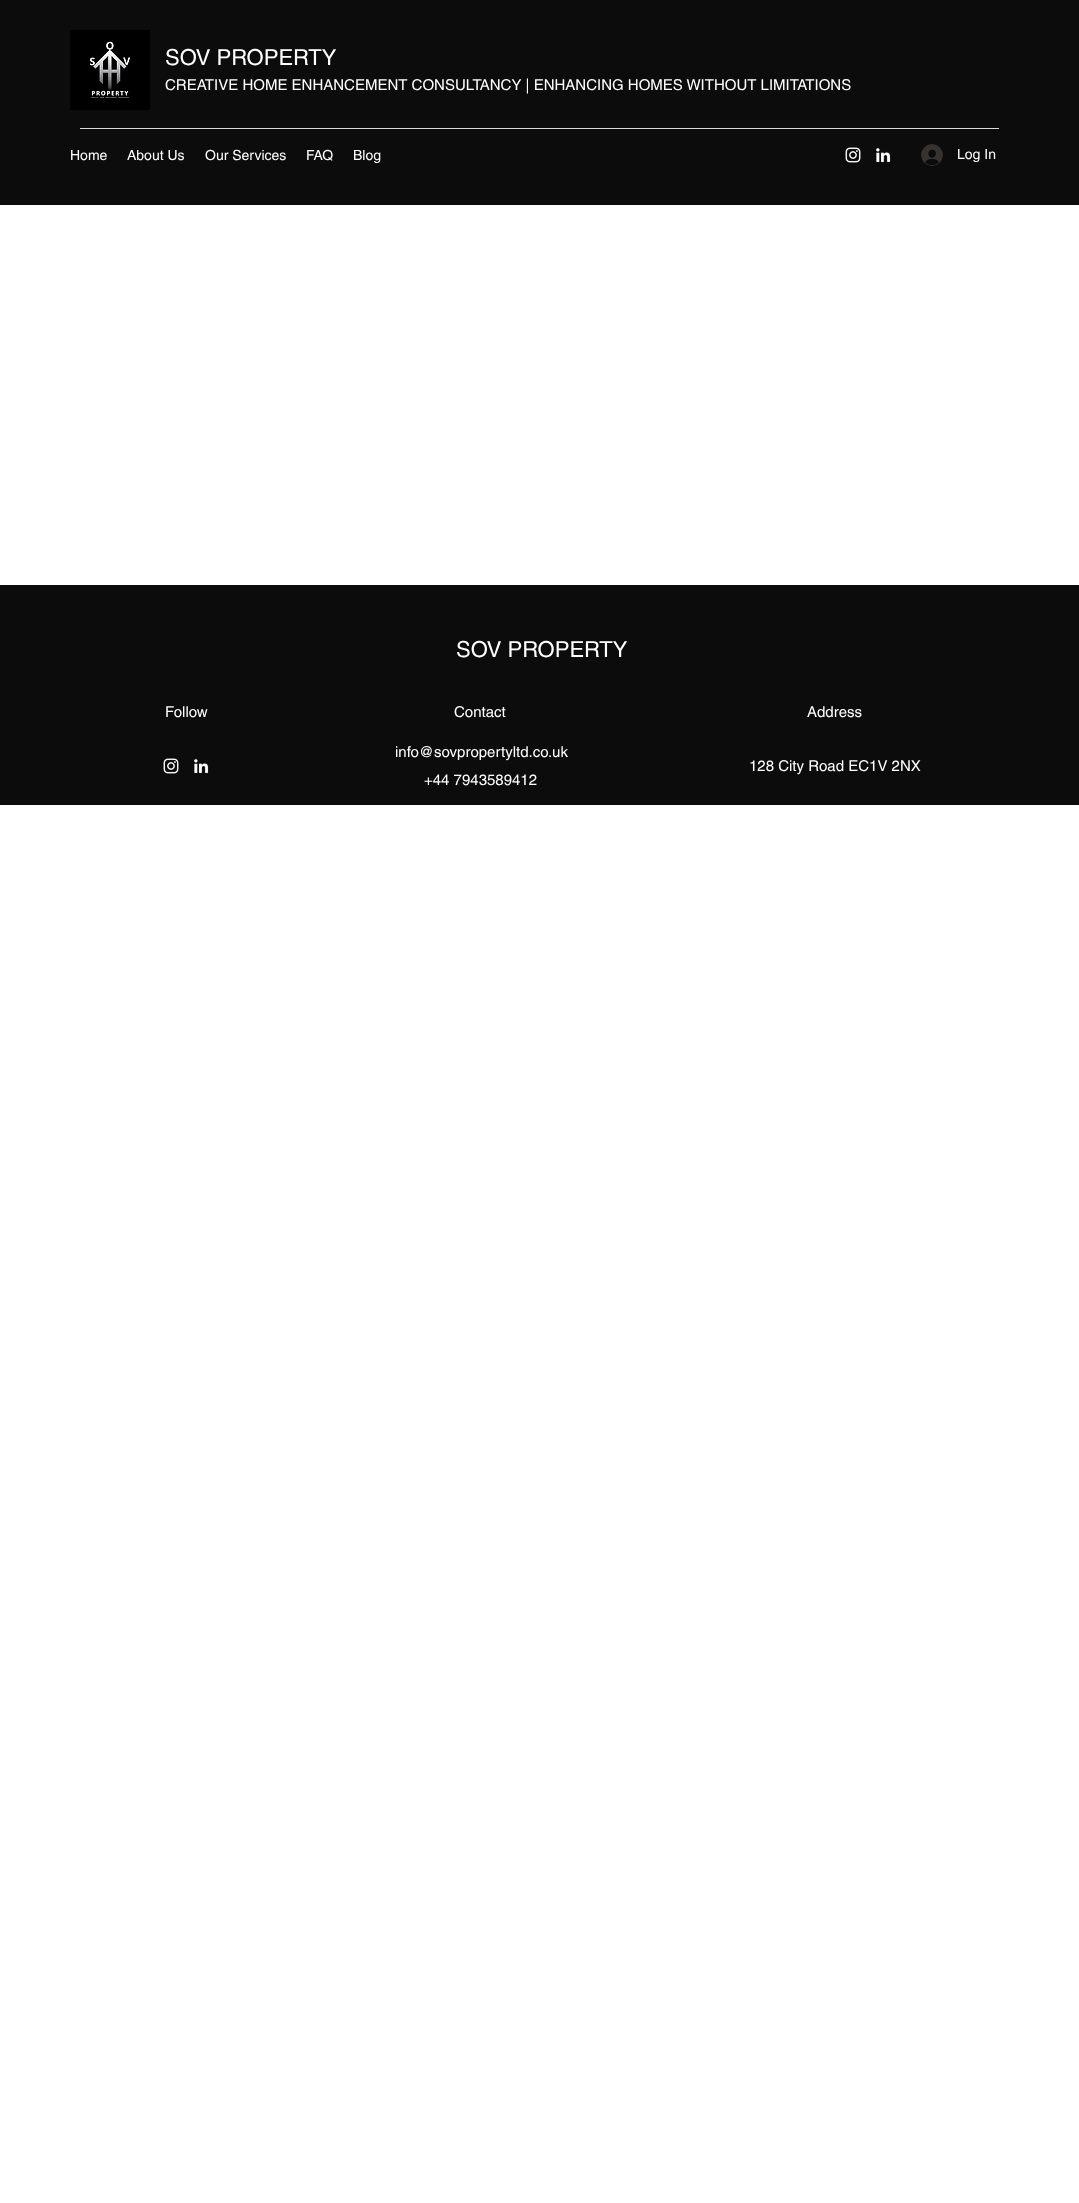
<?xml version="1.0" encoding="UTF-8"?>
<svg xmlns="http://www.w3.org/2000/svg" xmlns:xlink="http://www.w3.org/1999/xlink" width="1079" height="2203">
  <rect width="100%" height="100%" fill="#ffffff" />
  <rect width="1079" height="205" fill="#0c0c0d" />
  <image x="70" y="30" width="80" height="80" xlink:href="image1.png" />
  <rect x="80" y="128" width="919" height="1" fill="#dbdbdb" />
  <image x="845" y="147" width="16" height="16" xlink:href="image2.png" />
  <image x="876" y="148" width="15" height="15" xlink:href="image3.png" />
  <image x="921" y="144" width="22" height="22" xlink:href="image4.png" />
  <rect y="585" width="1079" height="220" fill="#0c0c0d" />
  <image x="163" y="758" width="16" height="16" xlink:href="image2.png" />
  <image x="194" y="759" width="15" height="15" xlink:href="image3.png" />
  <text x="165" y="65" style="font-family: helvetica; font-size: 22px; fill: #ffffff">SOV PROPERTY</text>
  <text x="165" y="90" style="font-family: helvetica; font-size: 15px; fill: #ffffff">CREATIVE HOME ENHANCEMENT CONSULTANCY | ENHANCING HOMES WITHOUT LIMITATIONS</text>
  <text x="70" y="160" style="font-family: helvetica; font-size: 14px; fill: #ffffff">Home</text>
  <text x="127" y="160" style="font-family: helvetica; font-size: 14px; fill: #ffffff">About Us</text>
  <text x="205" y="160" style="font-family: helvetica; font-size: 14px; fill: #ffffff">Our Services</text>
  <text x="306" y="160" style="font-family: helvetica; font-size: 14px; fill: #ffffff">FAQ</text>
  <text x="353" y="160" style="font-family: helvetica; font-size: 14px; fill: #ffffff">Blog</text>
  <text x="957" y="159" style="font-family: helvetica; font-size: 14px; fill: #ffffff">Log In</text>
  <text x="456" y="657" style="font-family: helvetica; font-size: 22px; fill: #ffffff">SOV PROPERTY</text>
  <text x="165" y="717" style="font-family: helvetica; font-size: 15px; fill: #ffffff">Follow</text>
  <text x="454" y="717" style="font-family: helvetica; font-size: 15px; fill: #ffffff">Contact</text>
  <text x="807" y="717" style="font-family: helvetica; font-size: 15px; fill: #ffffff">Address</text>
  <text x="395" y="757" style="font-family: helvetica; font-size: 15px; fill: #ffffff">info@sovpropertyltd.co.uk</text>
  <text x="749" y="771" style="font-family: helvetica; font-size: 15px; fill: #ffffff">128 City Road EC1V 2NX</text>
  <text x="424" y="785" style="font-family: helvetica; font-size: 15px; fill: #ffffff">+44 7943589412</text>
</svg>
